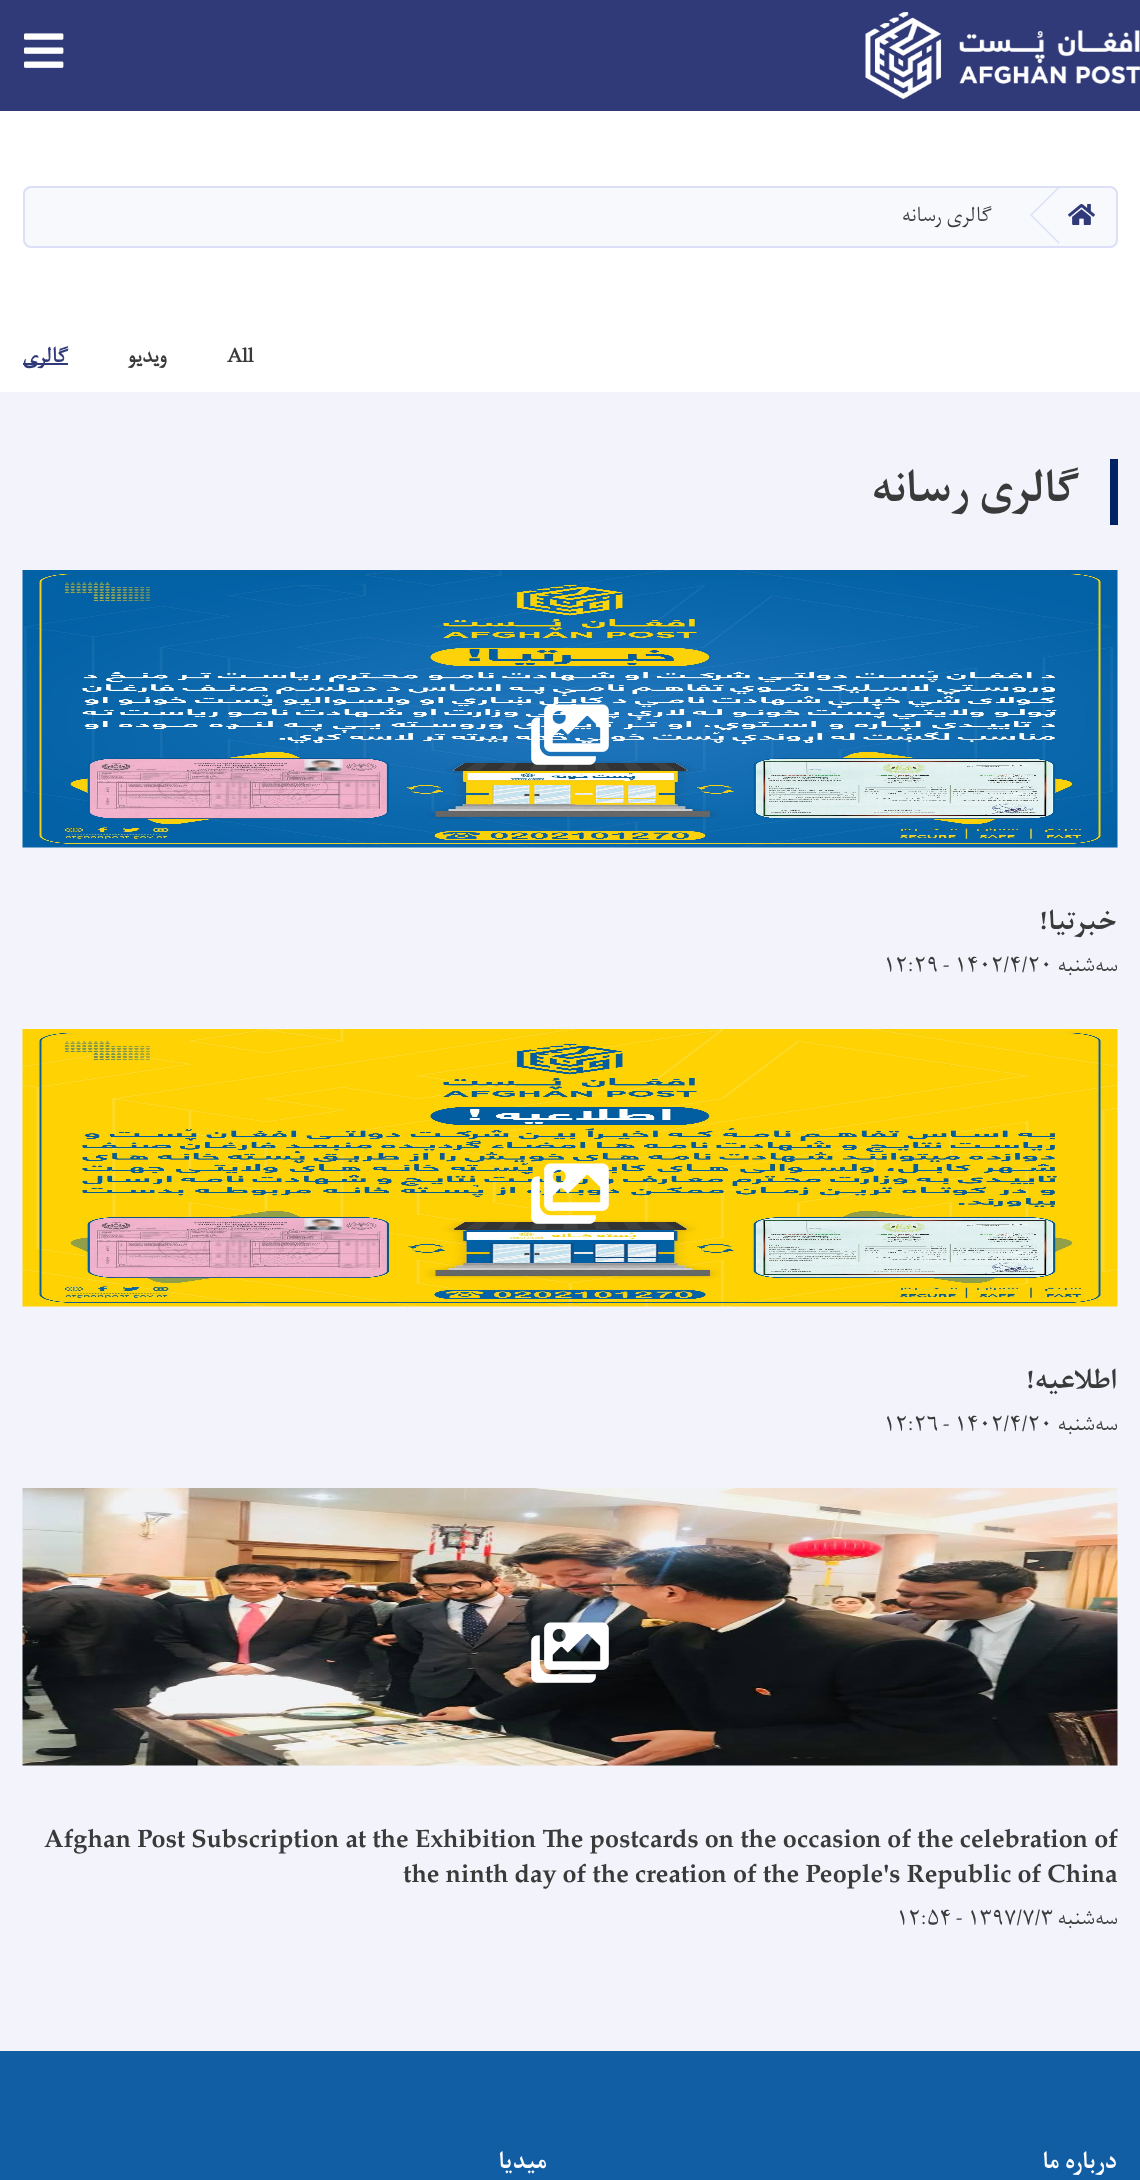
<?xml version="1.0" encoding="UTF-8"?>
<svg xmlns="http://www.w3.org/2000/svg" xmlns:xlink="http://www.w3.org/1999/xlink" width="1140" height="2180">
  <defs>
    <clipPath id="clip1"><rect x="902" y="188" width="157" height="58" /></clipPath>
  </defs>
  <rect width="100%" height="100%" fill="#ffffff" />
  <rect width="1140" height="111" fill="#303a79" />
  <image x="24" y="33" width="40" height="35" xlink:href="image1.png" />
  <image x="865" y="12" width="275" height="87" xlink:href="image2.png" />
  <rect x="23" y="186" width="1095" height="62" rx="8" fill="#f8f9fd" />
  <rect x="24" y="187" width="1093" height="60" rx="7" fill="none" stroke="#bfc6f2" stroke-opacity="0.5" stroke-width="2" />
  <g clip-path="url(#clip1)">
    <path d="M 1078 168.5 l 46.5 46.5 l -46.5 47 l -47 -47 z" fill="none" stroke="#dce0f8" stroke-width="1.5" />
  </g>
  <image x="1068" y="204" width="27" height="21" xlink:href="image3.png" />
  <rect x="23" y="363" width="45" height="2" fill="#303a79" />
  <rect y="392" width="1140" height="1659" fill="#f2f3fb" />
  <rect x="1110" y="459" width="8" height="66" fill="#002366" />
  <image x="22" y="570" width="1096" height="278" xlink:href="image4.png" />
  <image x="531" y="704" width="78" height="61" xlink:href="image5.png" />
  <image x="22" y="1029" width="1096" height="278" xlink:href="image6.png" />
  <image x="531" y="1163" width="78" height="61" xlink:href="image7.png" />
  <image x="22" y="1488" width="1096" height="278" xlink:href="image8.png" />
  <image x="531" y="1622" width="78" height="61" xlink:href="image9.png" />
  <rect y="2051" width="1140" height="129" fill="#115ea4" />
  <text x="992" y="221" style="font-family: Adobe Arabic; font-size: 24px; direction: rtl; fill: #3a3a3a">گالری رسانه</text>
  <text x="68" y="362" style="font-family: Adobe Arabic; font-size: 24px; font-weight: bold; direction: rtl; fill: #303a79">گالری</text>
  <text x="167" y="362" style="font-family: Adobe Arabic; font-size: 24px; font-weight: bold; direction: rtl; fill: #3a3a3a">ویدیو</text>
  <text x="227" y="362" style="font-family: Adobe Arabic; font-size: 24px; font-weight: bold; fill: #3a3a3a">All</text>
  <text x="1080" y="501" style="font-family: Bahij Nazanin; font-size: 51px; font-weight: bold; direction: rtl; fill: #3a3a3a">گالری رسانه</text>
  <text x="1117" y="929" style="font-family: Bahij Nazanin; font-size: 31.5px; font-weight: bold; direction: rtl; fill: #3a3a3a">خبرتیا!</text>
  <text x="883" y="971" style="font-family: Adobe Arabic; font-size: 24px; fill: #3a3a3a">۱۲:۲۹ - ۱۴۰۲/۴/۲۰</text>
  <text x="1118" y="971" style="font-family: Adobe Arabic; font-size: 24px; direction: rtl; fill: #3a3a3a">سه‌شنبه</text>
  <text x="1117" y="1388" style="font-family: Bahij Nazanin; font-size: 31.5px; font-weight: bold; direction: rtl; fill: #3a3a3a">اطلاعیه!</text>
  <text x="883" y="1430" style="font-family: Adobe Arabic; font-size: 24px; fill: #3a3a3a">۱۲:۲۶ - ۱۴۰۲/۴/۲۰</text>
  <text x="1118" y="1430" style="font-family: Adobe Arabic; font-size: 24px; direction: rtl; fill: #3a3a3a">سه‌شنبه</text>
  <text x="44" y="1847" style="font-family: Bahij Nazanin; font-size: 31.5px; font-weight: bold; fill: #3a3a3a">Afghan Post Subscription at the Exhibition The postcards on the occasion of the celebration of</text>
  <text x="403" y="1882" style="font-family: Bahij Nazanin; font-size: 31.5px; font-weight: bold; fill: #3a3a3a">the ninth day of the creation of the People's Republic of China</text>
  <text x="896" y="1924" style="font-family: Adobe Arabic; font-size: 24px; fill: #3a3a3a">۱۲:۵۴ - ۱۳۹۷/۷/۳</text>
  <text x="1118" y="1924" style="font-family: Adobe Arabic; font-size: 24px; direction: rtl; fill: #3a3a3a">سه‌شنبه</text>
  <text x="547" y="2168" style="font-family: Bahij Nazanin; font-size: 27px; font-weight: bold; direction: rtl; fill: #ffffff">میدیا</text>
  <text x="1117" y="2168" style="font-family: Bahij Nazanin; font-size: 27px; font-weight: bold; direction: rtl; fill: #ffffff">درباره ما</text>
</svg>
